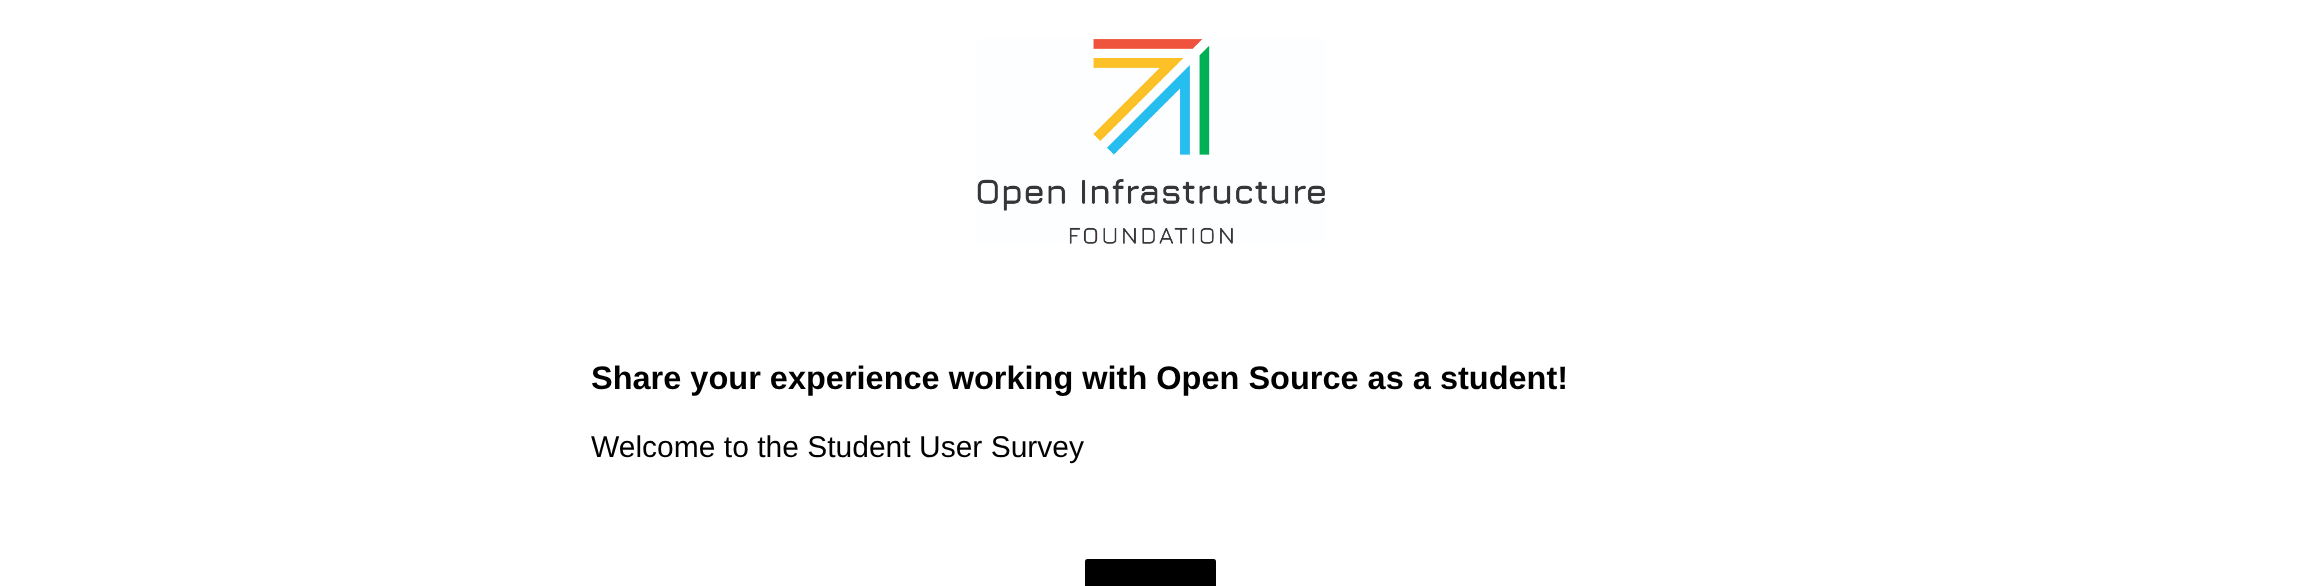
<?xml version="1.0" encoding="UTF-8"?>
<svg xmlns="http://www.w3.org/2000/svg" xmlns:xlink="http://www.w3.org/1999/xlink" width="2301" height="586">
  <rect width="100%" height="100%" fill="#ffffff" />
  <image x="977" y="38" width="348" height="206" xlink:href="image1.png" />
  <rect x="1085" y="559" width="131" height="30" rx="2.5" fill="#000000" />
  <text x="591" y="389" style="font-family: Liberation Sans; font-size: 32.5px; font-weight: bold; fill: #000000">Share your experience working with Open Source as a student!</text>
  <text x="591" y="457" style="font-family: Liberation Sans; font-size: 30px; fill: #000000">Welcome to the Student User Survey</text>
</svg>
